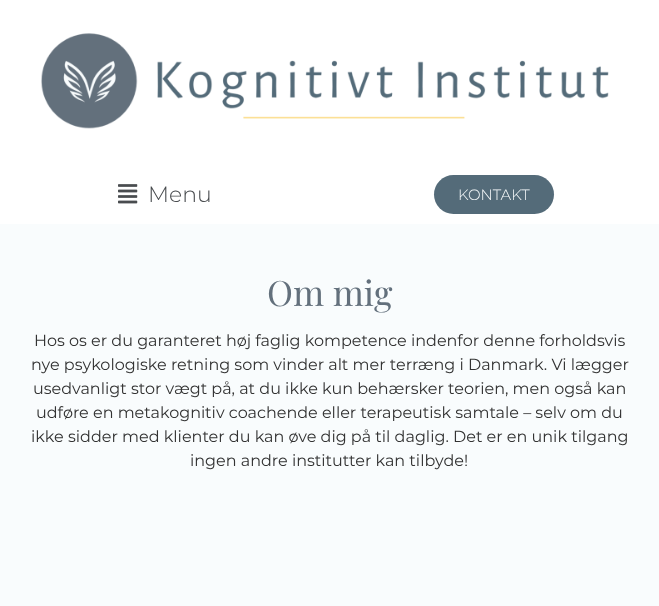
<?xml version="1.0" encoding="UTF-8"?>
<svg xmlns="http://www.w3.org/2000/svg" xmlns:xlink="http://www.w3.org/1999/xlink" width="659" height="606">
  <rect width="100%" height="100%" fill="#f9fcfd" />
  <rect width="659" height="224" fill="#ffffff" />
  <image x="41" y="33" width="568" height="96" xlink:href="image1.png" />
  <image x="118" y="184" width="20" height="20" xlink:href="image2.png" />
  <rect x="434" y="175" width="120" height="39" rx="19.5" fill="#546b79" />
  <text x="148" y="202" style="font-family: Montserrat; font-size: 22px; font-weight: 300; fill: #494c4f">Menu</text>
  <text x="458" y="200" style="font-family: Montserrat; font-size: 15px; font-weight: 300; fill: #f9fcfd">KONTAKT</text>
  <text x="267" y="306" style="font-family: Playfair Display; font-size: 35px; fill: #63707c">Om mig</text>
  <text x="34" y="346" style="font-family: Montserrat; font-size: 16px; fill: #333333">Hos os er du garanteret høj faglig kompetence indenfor denne forholdsvis</text>
  <text x="31" y="370" style="font-family: Montserrat; font-size: 16px; fill: #333333">nye psykologiske retning som vinder alt mer terræng i Danmark. Vi lægger</text>
  <text x="33" y="394" style="font-family: Montserrat; font-size: 16px; fill: #333333">usedvanligt stor vægt på, at du ikke kun behærsker teorien, men også kan</text>
  <text x="36" y="418" style="font-family: Montserrat; font-size: 16px; fill: #333333">udføre en metakognitiv coachende eller terapeutisk samtale – selv om du</text>
  <text x="31" y="442" style="font-family: Montserrat; font-size: 16px; fill: #333333">ikke sidder med klienter du kan øve dig på til daglig. Det er en unik tilgang</text>
  <text x="190" y="466" style="font-family: Montserrat; font-size: 16px; fill: #333333">ingen andre institutter kan tilbyde!</text>
</svg>
